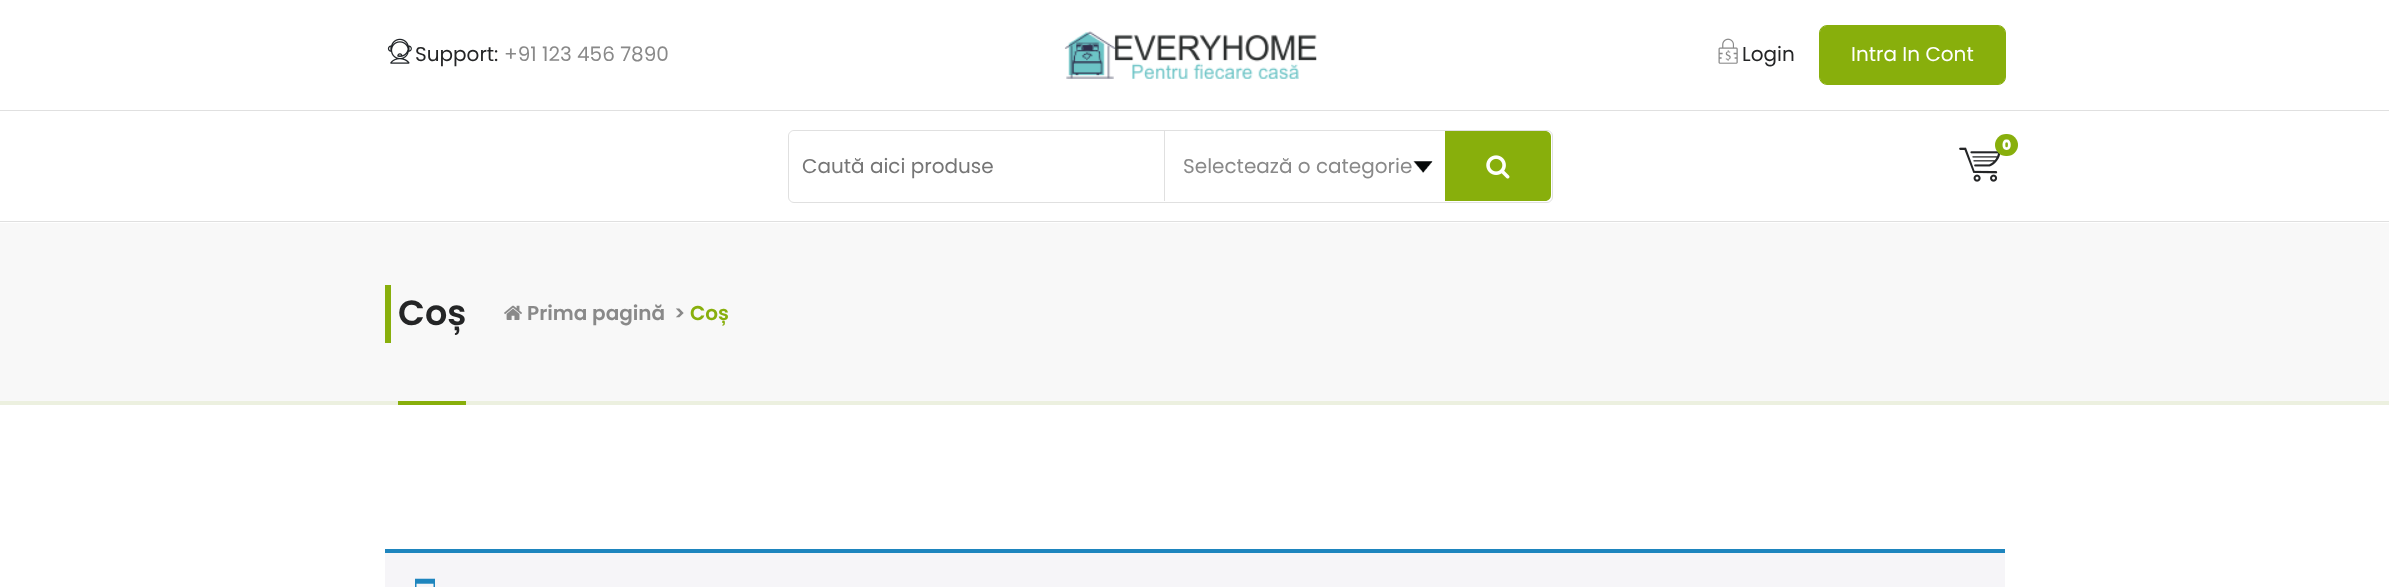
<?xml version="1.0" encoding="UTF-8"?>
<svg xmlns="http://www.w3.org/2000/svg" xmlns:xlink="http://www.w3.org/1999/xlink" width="2389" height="587">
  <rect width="100%" height="100%" fill="#ffffff" />
  <rect y="110" width="2389" height="1" fill="#e0e0e0" />
  <image x="387" y="38" width="25" height="26" xlink:href="image1.png" />
  <image x="1064" y="31" width="253" height="48" xlink:href="image2.png" />
  <image x="1718" y="38" width="20" height="26" xlink:href="image3.png" />
  <rect x="1820" y="26" width="185" height="58" rx="6" fill="#88af0c" />
  <rect x="1819.5" y="25.5" width="186" height="59" rx="7.5" fill="none" stroke="#88af0c" />
  <rect y="221" width="2389" height="1" fill="#e0e0e0" />
  <image x="1959" y="147" width="42" height="35" xlink:href="image4.png" />
  <rect x="1995" y="134" width="23" height="22" rx="11" fill="#88af0c" />
  <rect x="788.5" y="130.5" width="764" height="72" rx="5.5" fill="none" stroke="#e0e0e0" />
  <rect x="789" y="131" width="375" height="70" rx="6" fill="#ffffff" />
  <image x="1413" y="161" width="20" height="12" xlink:href="image5.png" />
  <rect x="1164" y="131" width="1" height="70" fill="#e0e0e0" />
  <path d="M 1445 131 h 100 c 3.5 0 6 2.5 6 6 v 58 c 0 3.5 -2.5 6 -6 6 h -100 z" fill="#88af0c" />
  <image x="1486" y="155" width="24" height="24" xlink:href="image6.png" />
  <rect y="223" width="2389" height="182" fill="#f8f8f8" />
  <rect x="385" y="285" width="6" height="58" fill="#88af0c" />
  <rect x="398" y="401" width="68" height="4" fill="#88af0c" />
  <image x="504" y="305" width="18" height="15" xlink:href="image7.png" />
  <rect y="401" width="2389" height="4" fill="#88af0c" fill-opacity="0.1" />
  <rect x="385" y="553" width="1620" height="34" fill="#f6f5f8" />
  <rect x="385" y="549" width="1620" height="4" fill="#1e85be" />
  <image x="415" y="578" width="20" height="9" xlink:href="image8.png" />
  <text x="415" y="61" style="font-family: Poppins; font-size: 20px; fill: #242526">Support:</text>
  <text x="504" y="61" style="font-family: Poppins; font-size: 20px; fill: #898989">+91 123 456 7890</text>
  <text x="1742" y="61" style="font-family: Poppins; font-size: 20px; fill: #242526">Login</text>
  <text x="1851" y="61" style="font-family: Poppins; font-size: 20px; fill: #ffffff">Intra In Cont</text>
  <text x="2002" y="150" style="font-family: Poppins; font-size: 14px; font-weight: 800; fill: #ffffff">0</text>
  <text x="802" y="173" style="font-family: Poppins; font-size: 20px; fill: #757575">Caută aici produse</text>
  <text x="1183" y="173" style="font-family: Poppins; font-size: 20px; fill: #898989">Selectează o categorie</text>
  <text x="398" y="325" style="font-family: Poppins; font-size: 35px; font-weight: 600; fill: #242526">Coș</text>
  <text x="527" y="320" style="font-family: Poppins; font-size: 20px; font-weight: 600; fill: #898989">Prima pagină</text>
  <text x="674" y="320" style="font-family: Poppins; font-size: 20px; font-weight: 600; fill: #898989">&gt;</text>
  <text x="690" y="320" style="font-family: Poppins; font-size: 20px; font-weight: 600; fill: #88af0c">Coș</text>
</svg>
